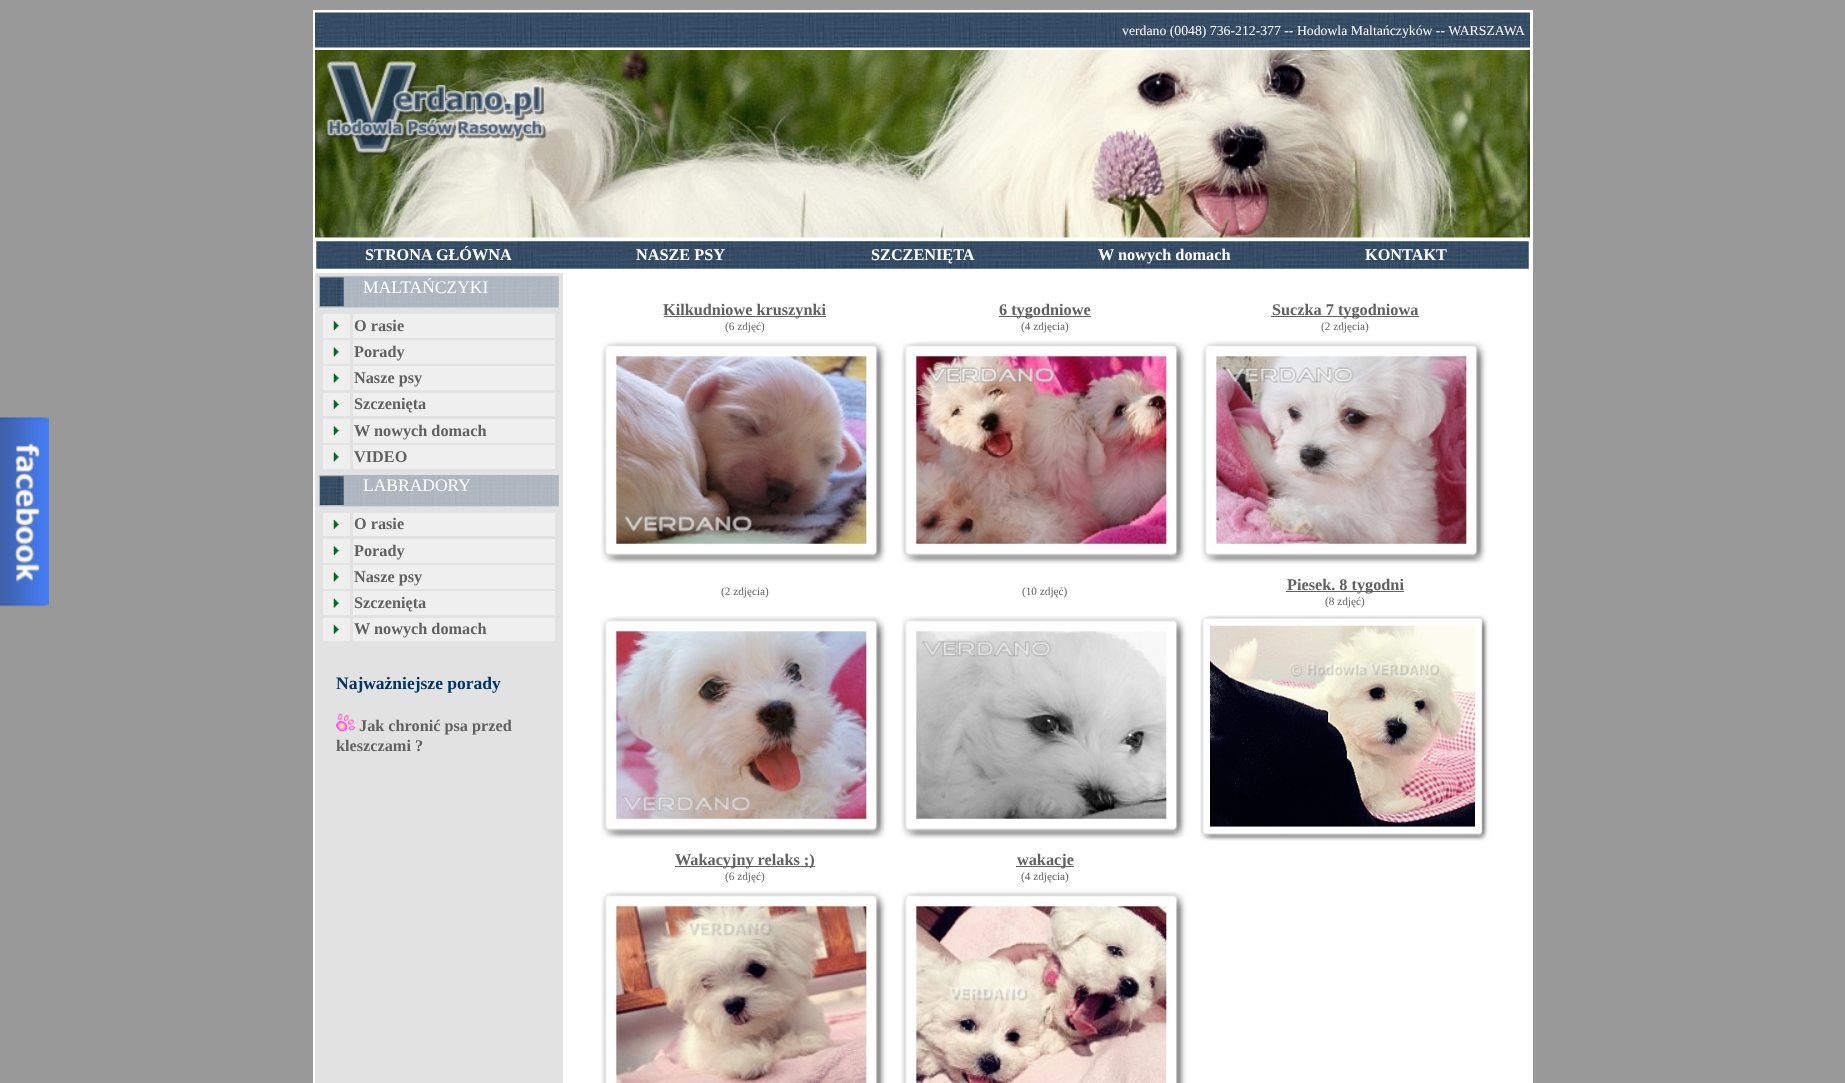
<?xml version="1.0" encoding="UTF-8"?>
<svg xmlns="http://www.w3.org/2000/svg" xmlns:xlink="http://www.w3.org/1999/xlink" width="1845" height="1083">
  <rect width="100%" height="100%" fill="#999999" />
  <image x="0" y="417" width="49" height="190" xlink:href="image1.png" />
  <rect x="313" y="10" width="1220" height="1073" fill="#ffffff" />
  <image x="315" y="12" width="1215" height="36" xlink:href="image2.png" />
  <image x="315" y="50" width="1215" height="188" xlink:href="image3.png" />
  <image x="316" y="241" width="1213" height="28" xlink:href="image4.png" />
  <rect x="315" y="273" width="248" height="810" fill="#e2e2e2" />
  <image x="318" y="276" width="241" height="32" xlink:href="image5.png" />
  <image x="320" y="277" width="24" height="30" xlink:href="image6.png" />
  <rect x="323" y="314" width="27" height="24" fill="#efefef" />
  <image x="333" y="321" width="6" height="10" xlink:href="image7.png" />
  <rect x="353" y="314" width="202" height="24" fill="#efefef" />
  <rect x="323" y="340" width="27" height="24" fill="#efefef" />
  <image x="333" y="347" width="6" height="10" xlink:href="image8.png" />
  <rect x="353" y="340" width="202" height="24" fill="#efefef" />
  <rect x="323" y="366" width="27" height="24" fill="#efefef" />
  <image x="333" y="373" width="6" height="10" xlink:href="image9.png" />
  <rect x="353" y="366" width="202" height="24" fill="#efefef" />
  <rect x="323" y="393" width="27" height="23" fill="#efefef" />
  <image x="333" y="399" width="6" height="10" xlink:href="image10.png" />
  <rect x="353" y="393" width="202" height="23" fill="#efefef" />
  <rect x="323" y="419" width="27" height="24" fill="#efefef" />
  <image x="333" y="426" width="6" height="10" xlink:href="image7.png" />
  <rect x="353" y="419" width="202" height="24" fill="#efefef" />
  <rect x="323" y="445" width="27" height="24" fill="#efefef" />
  <image x="333" y="452" width="6" height="10" xlink:href="image8.png" />
  <rect x="353" y="445" width="202" height="24" fill="#efefef" />
  <image x="318" y="475" width="241" height="32" xlink:href="image11.png" />
  <image x="320" y="476" width="24" height="29" xlink:href="image12.png" />
  <rect x="323" y="513" width="27" height="23" fill="#efefef" />
  <image x="333" y="519" width="6" height="10" xlink:href="image10.png" />
  <rect x="353" y="513" width="202" height="23" fill="#efefef" />
  <rect x="323" y="539" width="27" height="24" fill="#efefef" />
  <image x="333" y="546" width="6" height="10" xlink:href="image7.png" />
  <rect x="353" y="539" width="202" height="24" fill="#efefef" />
  <rect x="323" y="565" width="27" height="24" fill="#efefef" />
  <image x="333" y="572" width="6" height="10" xlink:href="image8.png" />
  <rect x="353" y="565" width="202" height="24" fill="#efefef" />
  <rect x="323" y="591" width="27" height="24" fill="#efefef" />
  <image x="333" y="598" width="6" height="10" xlink:href="image9.png" />
  <rect x="353" y="591" width="202" height="24" fill="#efefef" />
  <rect x="323" y="618" width="27" height="23" fill="#efefef" />
  <image x="333" y="624" width="6" height="10" xlink:href="image10.png" />
  <rect x="353" y="618" width="202" height="23" fill="#efefef" />
  <image x="336" y="713" width="19" height="19" xlink:href="image13.png" />
  <rect x="664" y="316" width="162" height="1" fill="#616161" />
  <rect x="999" y="316" width="92" height="1" fill="#616161" />
  <rect x="1271" y="316" width="148" height="1" fill="#616161" />
  <image x="601" y="340" width="286" height="224" xlink:href="image14.png" />
  <image x="900" y="341" width="287" height="223" xlink:href="image15.png" />
  <image x="1201" y="341" width="286" height="223" xlink:href="image16.png" />
  <rect x="1286" y="591" width="118" height="1" fill="#616161" />
  <image x="601" y="616" width="286" height="223" xlink:href="image17.png" />
  <image x="901" y="616" width="286" height="223" xlink:href="image18.png" />
  <image x="1200" y="615" width="289" height="226" xlink:href="image19.png" />
  <rect x="675" y="866" width="140" height="1" fill="#616161" />
  <rect x="1016" y="866" width="58" height="1" fill="#616161" />
  <image x="601" y="890" width="286" height="193" xlink:href="image20.png" />
  <image x="901" y="891" width="286" height="192" xlink:href="image21.png" />
  <text x="1122" y="35" style="font-family: Liberation Serif; font-size: 13.75px; fill: #ffffff">verdano (0048) 736-212-377 -- Hodowla Maltańczyków -- WARSZAWA</text>
  <text x="365" y="260" style="font-family: Liberation Serif; font-size: 16.25px; font-weight: bold; fill: #ffffff">STRONA GŁÓWNA</text>
  <text x="636" y="260" style="font-family: Liberation Serif; font-size: 16.25px; font-weight: bold; fill: #ffffff">NASZE PSY</text>
  <text x="871" y="260" style="font-family: Liberation Serif; font-size: 16.25px; font-weight: bold; fill: #ffffff">SZCZENIĘTA</text>
  <text x="1098" y="260" style="font-family: Liberation Serif; font-size: 16.25px; font-weight: bold; fill: #ffffff">W nowych domach</text>
  <text x="1365" y="260" style="font-family: Liberation Serif; font-size: 16.25px; font-weight: bold; fill: #ffffff">KONTAKT</text>
  <text x="363" y="293" style="font-family: Liberation Serif; font-size: 17.5px; fill: #ffffff">MALTAŃCZYKI</text>
  <text x="354" y="331" style="font-family: Liberation Serif; font-size: 16.25px; font-weight: bold; fill: #616161">O rasie</text>
  <text x="354" y="357" style="font-family: Liberation Serif; font-size: 16.25px; font-weight: bold; fill: #616161">Porady</text>
  <text x="354" y="383" style="font-family: Liberation Serif; font-size: 16.25px; font-weight: bold; fill: #616161">Nasze psy</text>
  <text x="354" y="409" style="font-family: Liberation Serif; font-size: 16.25px; font-weight: bold; fill: #616161">Szczenięta</text>
  <text x="354" y="436" style="font-family: Liberation Serif; font-size: 16.25px; font-weight: bold; fill: #616161">W nowych domach</text>
  <text x="354" y="462" style="font-family: Liberation Serif; font-size: 16.25px; font-weight: bold; fill: #616161">VIDEO</text>
  <text x="363" y="491" style="font-family: Liberation Serif; font-size: 17.5px; fill: #ffffff">LABRADORY</text>
  <text x="354" y="529" style="font-family: Liberation Serif; font-size: 16.25px; font-weight: bold; fill: #616161">O rasie</text>
  <text x="354" y="556" style="font-family: Liberation Serif; font-size: 16.25px; font-weight: bold; fill: #616161">Porady</text>
  <text x="354" y="582" style="font-family: Liberation Serif; font-size: 16.25px; font-weight: bold; fill: #616161">Nasze psy</text>
  <text x="354" y="608" style="font-family: Liberation Serif; font-size: 16.25px; font-weight: bold; fill: #616161">Szczenięta</text>
  <text x="354" y="634" style="font-family: Liberation Serif; font-size: 16.25px; font-weight: bold; fill: #616161">W nowych domach</text>
  <text x="336" y="689" style="font-family: Liberation Serif; font-size: 17.5px; font-weight: bold; fill: #003366">Najważniejsze porady</text>
  <text x="359" y="731" style="font-family: Liberation Serif; font-size: 16.25px; font-weight: bold; fill: #616161">Jak chronić psa przed</text>
  <text x="336" y="751" style="font-family: Liberation Serif; font-size: 16.25px; font-weight: bold; fill: #616161">kleszczami ?</text>
  <text x="663" y="315" style="font-family: Liberation Serif; font-size: 16.25px; font-weight: bold; fill: #616161">Kilkudniowe kruszynki</text>
  <text x="725" y="330" style="font-family: Liberation Serif; font-size: 11.25px; fill: #616161">(6 zdjęć)</text>
  <text x="999" y="315" style="font-family: Liberation Serif; font-size: 16.25px; font-weight: bold; fill: #616161">6 tygodniowe</text>
  <text x="1021" y="330" style="font-family: Liberation Serif; font-size: 11.25px; fill: #616161">(4 zdjęcia)</text>
  <text x="1272" y="315" style="font-family: Liberation Serif; font-size: 16.25px; font-weight: bold; fill: #616161">Suczka 7 tygodniowa</text>
  <text x="1321" y="330" style="font-family: Liberation Serif; font-size: 11.25px; fill: #616161">(2 zdjęcia)</text>
  <text x="721" y="595" style="font-family: Liberation Serif; font-size: 11.25px; fill: #616161">(2 zdjęcia)</text>
  <text x="1022" y="595" style="font-family: Liberation Serif; font-size: 11.25px; fill: #616161">(10 zdjęć)</text>
  <text x="1287" y="590" style="font-family: Liberation Serif; font-size: 16.25px; font-weight: bold; fill: #616161">Piesek. 8 tygodni</text>
  <text x="1325" y="605" style="font-family: Liberation Serif; font-size: 11.25px; fill: #616161">(8 zdjęć)</text>
  <text x="675" y="865" style="font-family: Liberation Serif; font-size: 16.25px; font-weight: bold; fill: #616161">Wakacyjny relaks ;)</text>
  <text x="725" y="880" style="font-family: Liberation Serif; font-size: 11.25px; fill: #616161">(6 zdjęć)</text>
  <text x="1017" y="865" style="font-family: Liberation Serif; font-size: 16.25px; font-weight: bold; fill: #616161">wakacje</text>
  <text x="1021" y="880" style="font-family: Liberation Serif; font-size: 11.25px; fill: #616161">(4 zdjęcia)</text>
</svg>
